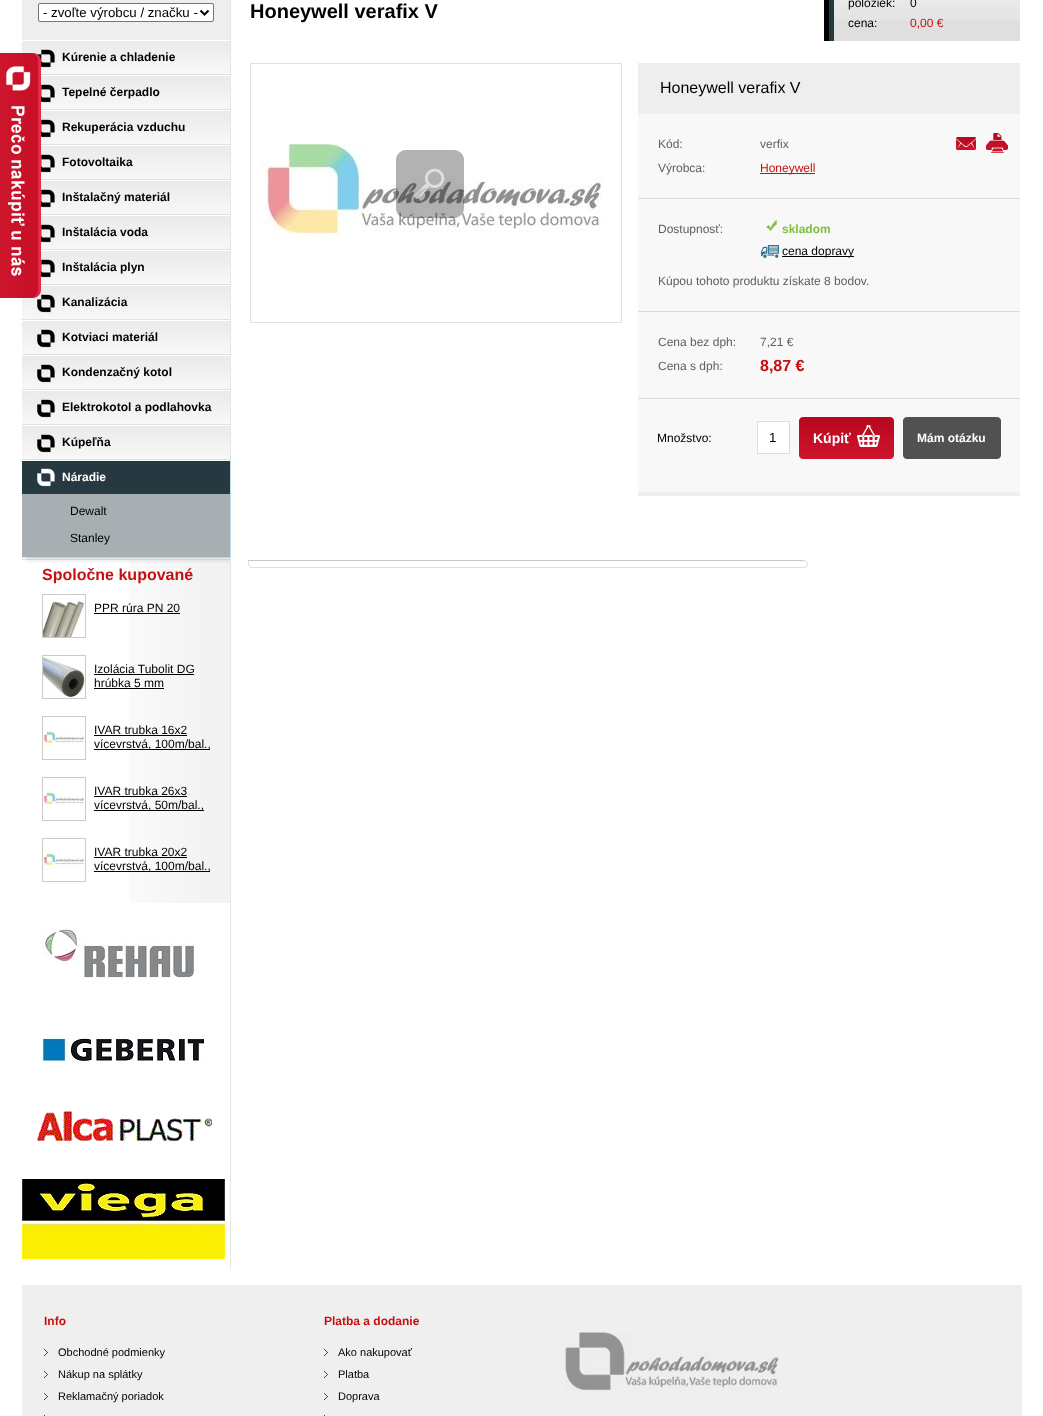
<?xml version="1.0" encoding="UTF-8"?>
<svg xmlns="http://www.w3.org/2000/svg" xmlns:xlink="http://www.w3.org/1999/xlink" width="1043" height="1416">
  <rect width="100%" height="100%" fill="#ffffff" />
  <image x="22" y="41" width="208" height="33" xlink:href="image2.png" />
  <image x="22" y="286" width="208" height="33" xlink:href="image2.png" />
  <image x="0" y="53" width="41" height="245" xlink:href="image1.png" />
  <rect x="230" width="1" height="1269" fill="#e6e6e6" />
  <rect x="22" width="208" height="40" fill="#eeeeee" />
  <rect x="38.5" y="3.5" width="175" height="18" rx="1.5" fill="#ffffff" stroke="#767676" />
  <path d="M 200.5 10.5 l 4 4 l 4 -4" fill="none" stroke="#000000" stroke-width="2" />
  <rect x="41" y="74" width="189" height="1" fill="#e0e0e0" />
  <rect x="41" y="109" width="189" height="1" fill="#e0e0e0" />
  <image x="41" y="76" width="189" height="33" xlink:href="image3.png" />
  <rect x="41" y="144" width="189" height="1" fill="#e0e0e0" />
  <image x="41" y="111" width="189" height="33" xlink:href="image3.png" />
  <rect x="41" y="179" width="189" height="1" fill="#e0e0e0" />
  <image x="41" y="146" width="189" height="33" xlink:href="image3.png" />
  <rect x="41" y="214" width="189" height="1" fill="#e0e0e0" />
  <image x="41" y="181" width="189" height="33" xlink:href="image3.png" />
  <rect x="41" y="249" width="189" height="1" fill="#e0e0e0" />
  <image x="41" y="216" width="189" height="33" xlink:href="image3.png" />
  <rect x="41" y="284" width="189" height="1" fill="#e0e0e0" />
  <image x="41" y="251" width="189" height="33" xlink:href="image3.png" />
  <rect x="22" y="319" width="208" height="1" fill="#e0e0e0" />
  <rect x="22" y="354" width="208" height="1" fill="#e0e0e0" />
  <image x="22" y="321" width="208" height="33" xlink:href="image2.png" />
  <rect x="22" y="389" width="208" height="1" fill="#e0e0e0" />
  <image x="22" y="356" width="208" height="33" xlink:href="image2.png" />
  <rect x="22" y="424" width="208" height="1" fill="#e0e0e0" />
  <image x="22" y="391" width="208" height="33" xlink:href="image2.png" />
  <rect x="22" y="459" width="208" height="1" fill="#e0e0e0" />
  <image x="22" y="426" width="208" height="33" xlink:href="image2.png" />
  <rect x="230" y="460" width="1" height="1" fill="#fefefe" />
  <rect x="230" y="460" width="1" height="98" fill="#bcddec" />
  <rect x="22" y="557" width="209" height="1" fill="#e0e0e0" />
  <rect x="22" y="461" width="208" height="33" fill="#263840" />
  <image x="37" y="468" width="18" height="19" xlink:href="image4.png" />
  <rect x="22" y="494" width="208" height="63" fill="#a8afb3" />
  <rect x="22" y="559" width="208" height="1" fill="#e0e0e0" />
  <image x="129" y="560" width="101" height="343" xlink:href="image6.png" />
  <image x="25" y="557" width="205" height="6" xlink:href="image5.png" />
  <rect x="42.5" y="594.5" width="43" height="43" fill="none" stroke="#cacaca" />
  <image x="43" y="595" width="42" height="42" xlink:href="image7.png" />
  <rect x="94" y="613" width="86" height="1" fill="#000000" />
  <rect x="42.5" y="655.5" width="43" height="43" fill="none" stroke="#cacaca" />
  <image x="43" y="656" width="42" height="42" xlink:href="image8.png" />
  <rect x="94" y="674" width="100" height="1" fill="#000000" />
  <rect x="94" y="688" width="70" height="1" fill="#000000" />
  <rect x="42.5" y="716.5" width="43" height="43" fill="none" stroke="#cacaca" />
  <image x="43" y="729" width="42" height="20" xlink:href="image9.png" />
  <rect x="94" y="735" width="93" height="1" fill="#000000" />
  <rect x="94" y="749" width="116" height="1" fill="#000000" />
  <rect x="42.5" y="777.5" width="43" height="43" fill="none" stroke="#cacaca" />
  <image x="43" y="790" width="42" height="20" xlink:href="image9.png" />
  <rect x="94" y="796" width="93" height="1" fill="#000000" />
  <rect x="94" y="810" width="110" height="1" fill="#000000" />
  <rect x="42.5" y="838.5" width="43" height="43" fill="none" stroke="#cacaca" />
  <image x="43" y="851" width="42" height="20" xlink:href="image9.png" />
  <rect x="94" y="857" width="93" height="1" fill="#000000" />
  <rect x="94" y="871" width="116" height="1" fill="#000000" />
  <image x="39" y="929" width="159" height="50" xlink:href="image10.png" />
  <image x="38" y="1034" width="167" height="32" xlink:href="image11.png" />
  <image x="37" y="1111" width="175" height="31" xlink:href="image12.png" />
  <image x="22" y="1179" width="203" height="80" xlink:href="image13.png" />
  <rect x="824" width="5" height="41" fill="#000000" />
  <rect x="829" width="5" height="41" fill="#263840" />
  <rect x="834" y="21" width="186" height="20" fill="#dfdfdf" />
  <image x="834" y="0" width="186" height="21" xlink:href="image14.png" />
  <rect x="250.5" y="63.5" width="371" height="259" fill="none" stroke="#dfdfdf" />
  <image x="260" y="143" width="343" height="97" xlink:href="image15.png" />
  <image x="396" y="150" width="68" height="68" xlink:href="image16.png" />
  <rect x="638" y="114" width="382" height="378" fill="#f8f8f8" />
  <rect x="638" y="492" width="382" height="4" fill="#eeeeee" />
  <rect x="638" y="63" width="382" height="51" fill="#eeeeee" />
  <rect x="638" y="198" width="382" height="1" fill="#dcdcdc" />
  <rect x="760" y="173" width="55" height="1" fill="#c41010" />
  <image x="956" y="137" width="20" height="13" xlink:href="image17.png" />
  <image x="986" y="133" width="22" height="20" xlink:href="image18.png" />
  <rect x="638" y="311" width="382" height="1" fill="#dcdcdc" />
  <image x="766" y="220" width="11" height="11" xlink:href="image19.png" />
  <image x="761" y="245" width="18" height="13" xlink:href="image20.png" />
  <rect x="782" y="256" width="72" height="1" fill="#000000" />
  <rect x="638" y="398" width="382" height="1" fill="#dcdcdc" />
  <rect x="757.5" y="421.5" width="32" height="32" fill="#ffffff" stroke="#dcdcdc" />
  <image x="799" y="417" width="95" height="42" xlink:href="image21.png" />
  <image x="903" y="417" width="98" height="42" xlink:href="image22.png" />
  <rect x="248" y="560" width="560" height="1" fill="#c9c9c9" />
  <rect x="248" y="561" width="1" height="2" fill="#dfdfdf" />
  <image x="248" y="563" width="560" height="5" xlink:href="image24.png" />
  <image x="803" y="560" width="5" height="4" xlink:href="image23.png" />
  <rect x="22" y="1285" width="1000" height="131" fill="#efefef" />
  <image x="565" y="1332" width="214" height="59" xlink:href="image25.png" />
  <image x="44" y="1349" width="4" height="7" xlink:href="image26.png" />
  <image x="44" y="1371" width="4" height="7" xlink:href="image26.png" />
  <image x="44" y="1393" width="4" height="7" xlink:href="image26.png" />
  <rect x="44" y="1415" width="1" height="1" fill="#c41010" />
  <image x="324" y="1349" width="4" height="7" xlink:href="image26.png" />
  <image x="324" y="1371" width="4" height="7" xlink:href="image26.png" />
  <image x="324" y="1393" width="4" height="7" xlink:href="image26.png" />
  <rect x="324" y="1415" width="1" height="1" fill="#c41010" />
  <text x="43" y="17" style="font-family: Liberation Sans; font-size: 13.25px; fill: #000000">- zvoľte výrobcu / značku -</text>
  <text x="62" y="61" style="font-family: Liberation Sans; font-size: 12px; font-weight: bold; fill: #000000">Kúrenie a chladenie</text>
  <text x="62" y="96" style="font-family: Liberation Sans; font-size: 12px; font-weight: bold; fill: #000000">Tepelné čerpadlo</text>
  <text x="62" y="131" style="font-family: Liberation Sans; font-size: 12px; font-weight: bold; fill: #000000">Rekuperácia vzduchu</text>
  <text x="62" y="166" style="font-family: Liberation Sans; font-size: 12px; font-weight: bold; fill: #000000">Fotovoltaika</text>
  <text x="62" y="201" style="font-family: Liberation Sans; font-size: 12px; font-weight: bold; fill: #000000">Inštalačný materiál</text>
  <text x="62" y="236" style="font-family: Liberation Sans; font-size: 12px; font-weight: bold; fill: #000000">Inštalácia voda</text>
  <text x="62" y="271" style="font-family: Liberation Sans; font-size: 12px; font-weight: bold; fill: #000000">Inštalácia plyn</text>
  <text x="62" y="306" style="font-family: Liberation Sans; font-size: 12px; font-weight: bold; fill: #000000">Kanalizácia</text>
  <text x="62" y="341" style="font-family: Liberation Sans; font-size: 12px; font-weight: bold; fill: #000000">Kotviaci materiál</text>
  <text x="62" y="376" style="font-family: Liberation Sans; font-size: 12px; font-weight: bold; fill: #000000">Kondenzačný kotol</text>
  <text x="62" y="411" style="font-family: Liberation Sans; font-size: 12px; font-weight: bold; fill: #000000">Elektrokotol a podlahovka</text>
  <text x="62" y="446" style="font-family: Liberation Sans; font-size: 12px; font-weight: bold; fill: #000000">Kúpeľňa</text>
  <text x="62" y="481" style="font-family: Liberation Sans; font-size: 12px; font-weight: bold; fill: #ffffff">Náradie</text>
  <text x="70" y="515" style="font-family: Liberation Sans; font-size: 12px; fill: #000000">Dewalt</text>
  <text x="70" y="542" style="font-family: Liberation Sans; font-size: 12px; fill: #000000">Stanley</text>
  <text x="42" y="580" style="font-family: Liberation Sans; font-size: 16px; font-weight: bold; fill: #c41010">Spoločne kupované</text>
  <text x="94" y="612" style="font-family: Liberation Sans; font-size: 12px; fill: #000000">PPR rúra PN 20</text>
  <text x="94" y="673" style="font-family: Liberation Sans; font-size: 12px; fill: #000000">Izolácia Tubolit DG</text>
  <text x="94" y="687" style="font-family: Liberation Sans; font-size: 12px; fill: #000000">hrúbka 5 mm</text>
  <text x="94" y="734" style="font-family: Liberation Sans; font-size: 12px; fill: #000000">IVAR trubka 16x2</text>
  <text x="94" y="748" style="font-family: Liberation Sans; font-size: 12px; fill: #000000">vícevrstvá, 100m/bal.,</text>
  <text x="94" y="795" style="font-family: Liberation Sans; font-size: 12px; fill: #000000">IVAR trubka 26x3</text>
  <text x="94" y="809" style="font-family: Liberation Sans; font-size: 12px; fill: #000000">vícevrstvá, 50m/bal.,</text>
  <text x="94" y="856" style="font-family: Liberation Sans; font-size: 12px; fill: #000000">IVAR trubka 20x2</text>
  <text x="94" y="870" style="font-family: Liberation Sans; font-size: 12px; fill: #000000">vícevrstvá, 100m/bal.,</text>
  <text x="250" y="18" style="font-family: Liberation Sans; font-size: 20px; font-weight: bold; fill: #000000">Honeywell verafix V</text>
  <text x="848" y="7" style="font-family: Liberation Sans; font-size: 12px; fill: #000000">položiek:</text>
  <text x="910" y="7" style="font-family: Liberation Sans; font-size: 12px; fill: #000000">0</text>
  <text x="848" y="27" style="font-family: Liberation Sans; font-size: 12px; fill: #000000">cena:</text>
  <text x="910" y="27" style="font-family: Liberation Sans; font-size: 12px; fill: #c41010">0,00 €</text>
  <text x="660" y="93" style="font-family: Liberation Sans; font-size: 16px; fill: #000000">Honeywell verafix V</text>
  <text x="658" y="148" style="font-family: Liberation Sans; font-size: 12px; fill: #5e5e5e">Kód:</text>
  <text x="760" y="148" style="font-family: Liberation Sans; font-size: 12px; fill: #5e5e5e">verfix</text>
  <text x="658" y="172" style="font-family: Liberation Sans; font-size: 12px; fill: #5e5e5e">Výrobca:</text>
  <text x="760" y="172" style="font-family: Liberation Sans; font-size: 12px; fill: #c41010">Honeywell</text>
  <text x="658" y="233" style="font-family: Liberation Sans; font-size: 12px; fill: #5e5e5e">Dostupnosť:</text>
  <text x="782" y="233" style="font-family: Liberation Sans; font-size: 12px; font-weight: bold; fill: #7cc13f">skladom</text>
  <text x="782" y="255" style="font-family: Liberation Sans; font-size: 12px; fill: #000000">cena dopravy</text>
  <text x="658" y="285" style="font-family: Liberation Sans; font-size: 12px; fill: #5e5e5e">Kúpou tohoto produktu získate 8 bodov.</text>
  <text x="658" y="346" style="font-family: Liberation Sans; font-size: 12px; fill: #5e5e5e">Cena bez dph:</text>
  <text x="760" y="346" style="font-family: Liberation Sans; font-size: 12px; fill: #5e5e5e">7,21 €</text>
  <text x="658" y="370" style="font-family: Liberation Sans; font-size: 12px; fill: #5e5e5e">Cena s dph:</text>
  <text x="760" y="371" style="font-family: Liberation Sans; font-size: 16px; font-weight: bold; fill: #c41010">8,87 €</text>
  <text x="657" y="442" style="font-family: Liberation Sans; font-size: 12px; fill: #000000">Množstvo:</text>
  <text x="769" y="442" style="font-family: Liberation Sans; font-size: 13.25px; fill: #000000">1</text>
  <text x="813" y="443" style="font-family: Liberation Sans; font-size: 14px; font-weight: bold; fill: #ffffff">Kúpiť</text>
  <text x="917" y="442" style="font-family: Liberation Sans; font-size: 12px; font-weight: bold; fill: #ffffff">Mám otázku</text>
  <text x="44" y="1325" style="font-family: Liberation Sans; font-size: 12px; font-weight: bold; fill: #c41010">Info</text>
  <text x="324" y="1325" style="font-family: Liberation Sans; font-size: 12px; font-weight: bold; fill: #c41010">Platba a dodanie</text>
  <text x="58" y="1356" style="font-family: Liberation Sans; font-size: 11px; fill: #000000">Obchodné podmienky</text>
  <text x="58" y="1378" style="font-family: Liberation Sans; font-size: 11px; fill: #000000">Nákup na splátky</text>
  <text x="58" y="1400" style="font-family: Liberation Sans; font-size: 11px; fill: #000000">Reklamačný poriadok</text>
  <text x="338" y="1356" style="font-family: Liberation Sans; font-size: 11px; fill: #000000">Ako nakupovať</text>
  <text x="338" y="1378" style="font-family: Liberation Sans; font-size: 11px; fill: #000000">Platba</text>
  <text x="338" y="1400" style="font-family: Liberation Sans; font-size: 11px; fill: #000000">Doprava</text>
</svg>
